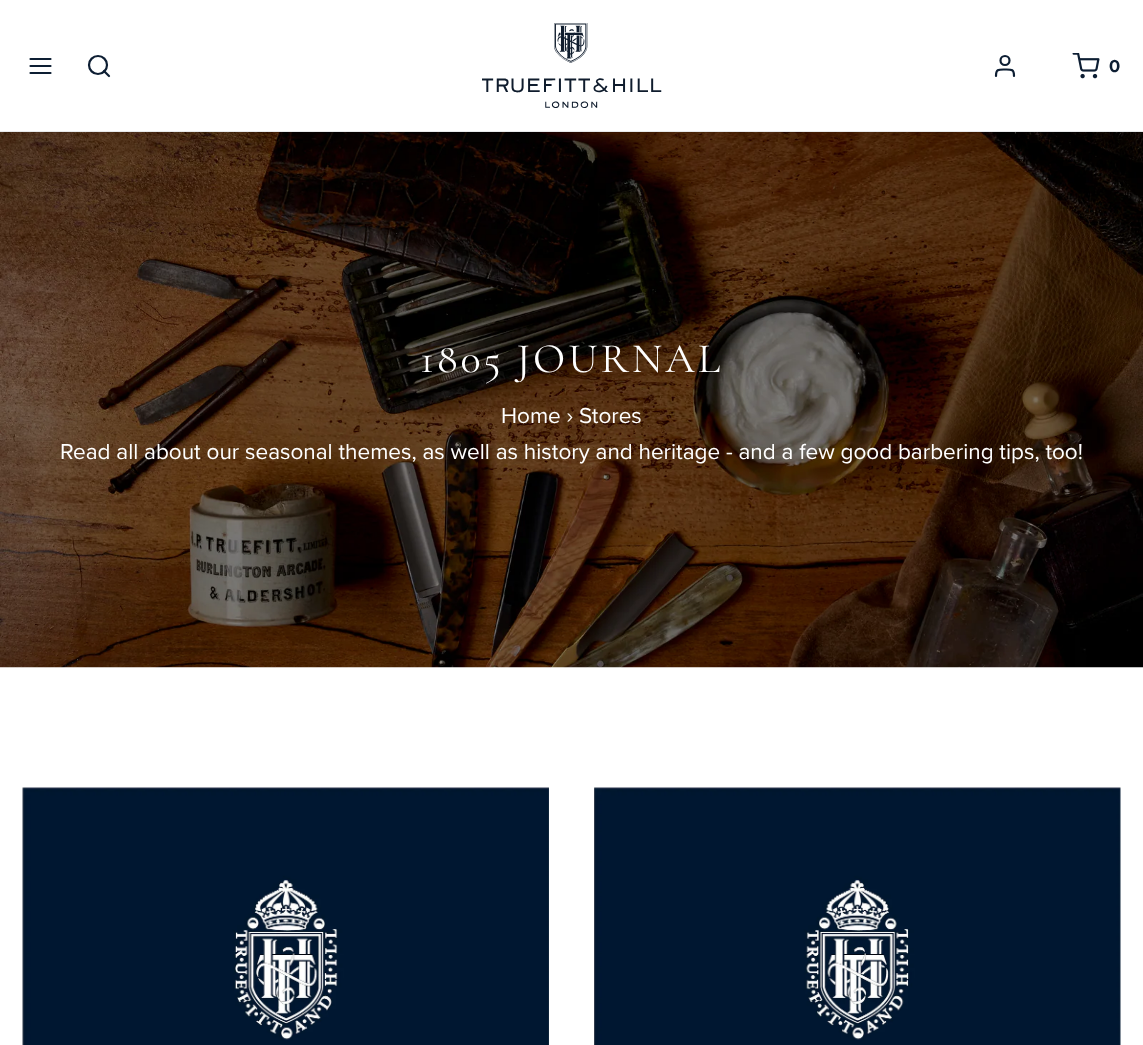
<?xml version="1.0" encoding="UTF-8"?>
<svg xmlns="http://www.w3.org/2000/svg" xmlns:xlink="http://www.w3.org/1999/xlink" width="1143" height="1045">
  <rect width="100%" height="100%" fill="#ffffff" />
  <rect y="131" width="1143" height="1" fill="#e7e9eb" />
  <path d="M 30.5 66 h 20 m -20 -7 h 20 m -20 14 h 20" fill="none" stroke="#0d1e33" stroke-width="2.2" stroke-linecap="round" stroke-linejoin="round" />
  <circle cx="98" cy="65" r="9" fill="none" stroke="#0d1e33" stroke-width="2.2" />
  <path d="M 109 76 l -5 -5" fill="none" stroke="#0d1e33" stroke-width="2.2" stroke-linecap="round" stroke-linejoin="round" />
  <image x="482" y="23" width="180" height="85" xlink:href="image1.png" />
  <path d="M 1014 76 c 0 -7 -2.5 -6.5 -9 -6.5 c -6.5 0 -9 -0.5 -9 6.5" fill="none" stroke="#0d1e33" stroke-width="2.2" stroke-linecap="round" stroke-linejoin="round" />
  <circle cx="1005" cy="60.5" r="4.5" fill="none" stroke="#0d1e33" stroke-width="2.2" />
  <image x="1072" y="53" width="28" height="26" xlink:href="image2.png" />
  <image x="0" y="132" width="1143" height="536" xlink:href="image3.png" />
  <image x="22" y="787" width="527" height="258" xlink:href="image4.png" />
  <image x="594" y="787" width="527" height="258" xlink:href="image5.png" />
  <text x="1109" y="72" style="font-family: Proxima Nova; font-size: 18px; font-weight: bold; fill: #0d1e33">0</text>
  <text x="420" y="372" style="font-family: Cormorant Garamond; font-size: 42px; font-weight: 300; letter-spacing: 3px; fill: #ffffff">1805 JOURNAL</text>
  <text x="501" y="423" style="font-family: Proxima Nova; font-size: 22.5px; fill: #ffffff">Home › Stores</text>
  <text x="60" y="459" style="font-family: Proxima Nova; font-size: 22.5px; fill: #ffffff">Read all about our seasonal themes, as well as history and heritage - and a few good barbering tips, too!</text>
</svg>
